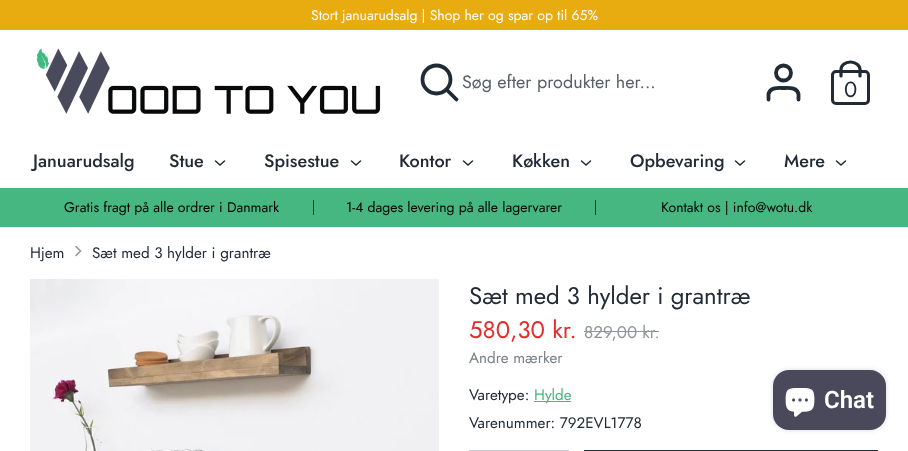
<?xml version="1.0" encoding="UTF-8"?>
<svg xmlns="http://www.w3.org/2000/svg" xmlns:xlink="http://www.w3.org/1999/xlink" width="908" height="451">
  <rect width="100%" height="100%" fill="#ffffff" />
  <rect width="908" height="30" fill="#e8ac11" />
  <image x="36" y="48" width="345" height="66" xlink:href="image1.png" />
  <circle cx="436.5" cy="79.5" r="14" fill="none" stroke="#212b36" stroke-width="3.8" />
  <path d="M 456.5 99.5 l -10 -10" fill="none" stroke="#212b36" stroke-width="3.8" stroke-linecap="round" />
  <path d="M 798.5 99.5 v -5.5 c -1.5 -7 -9.5 -6 -15 -6 c -5.5 0 -13.5 -1 -15 6 v 5.5" fill="none" stroke="#212b36" stroke-width="3.8" stroke-linecap="round" />
  <circle cx="783.5" cy="73" r="7.5" fill="none" stroke="#212b36" stroke-width="3.8" />
  <rect x="832.5" y="71.5" width="36" height="32" rx="3.5" fill="none" stroke="#212b36" stroke-width="3" />
  <path d="M 841 76 v -6.5 c 0 -4 4 -7.5 9.5 -7.5 c 5 0 9.5 3.5 9.5 7.5 v 6.5" fill="none" stroke="#212b36" stroke-width="3.2" stroke-linecap="round" />
  <path d="M 215.5 161 l 4.5 4 l 4.5 -4" fill="none" stroke="#212b36" stroke-width="1.5" stroke-linecap="round" />
  <path d="M 351.5 161 l 4.5 4 l 4.5 -4" fill="none" stroke="#212b36" stroke-width="1.5" stroke-linecap="round" />
  <path d="M 463.5 161 l 4.5 4 l 4.5 -4" fill="none" stroke="#212b36" stroke-width="1.5" stroke-linecap="round" />
  <path d="M 581.5 161 l 4.5 4 l 4.5 -4" fill="none" stroke="#212b36" stroke-width="1.5" stroke-linecap="round" />
  <path d="M 735.5 161 l 4.5 4 l 4.5 -4" fill="none" stroke="#212b36" stroke-width="1.5" stroke-linecap="round" />
  <path d="M 836.5 161 l 4.5 4 l 4.5 -4" fill="none" stroke="#212b36" stroke-width="1.5" stroke-linecap="round" />
  <rect y="188" width="908" height="39" fill="#46b780" />
  <rect x="313" y="200" width="1" height="15" fill="#153726" />
  <rect x="595" y="200" width="1" height="15" fill="#153726" />
  <path d="M 76 255.5 l 4.5 -4.5 l -4.5 -4.5" fill="none" stroke="#90959b" stroke-width="1.5" stroke-linecap="round" />
  <image x="30" y="279" width="409" height="172" xlink:href="image2.png" />
  <rect x="584" y="331" width="75" height="1" fill="#90959b" />
  <rect x="534" y="401" width="37" height="1" fill="#46b780" />
  <rect x="469.5" y="450.5" width="99" height="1" fill="none" stroke="#c7cacc" />
  <rect x="584.5" y="450.5" width="293" height="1" fill="none" stroke="#212b36" />
  <rect x="773" y="370" width="113" height="60" rx="16" fill="#000000" fill-opacity="0.15" filter="blur(2.5px)" />
  <rect x="773" y="370" width="113" height="60" rx="16" fill="#4a495c" />
  <image x="785" y="388" width="30" height="29" xlink:href="image3.png" />
  <text x="311" y="20" style="font-family: Jost; font-size: 14px; fill: #ffffff">Stort januarudsalg | Shop her og spar op til 65%</text>
  <text x="462" y="88" style="font-family: Jost; font-size: 18px; fill: #596068">Søg efter produkter her...</text>
  <text x="844" y="97" style="font-family: Jost; font-size: 22px; fill: #212b36">0</text>
  <text x="33" y="167" style="font-family: Jost; font-size: 18px; font-weight: 500; fill: #212b36">Januarudsalg</text>
  <text x="169" y="167" style="font-family: Jost; font-size: 18px; font-weight: 500; fill: #212b36">Stue</text>
  <text x="264" y="167" style="font-family: Jost; font-size: 18px; font-weight: 500; fill: #212b36">Spisestue</text>
  <text x="399" y="167" style="font-family: Jost; font-size: 18px; font-weight: 500; fill: #212b36">Kontor</text>
  <text x="512" y="167" style="font-family: Jost; font-size: 18px; font-weight: 500; fill: #212b36">Køkken</text>
  <text x="630" y="167" style="font-family: Jost; font-size: 18px; font-weight: 500; fill: #212b36">Opbevaring</text>
  <text x="784" y="167" style="font-family: Jost; font-size: 18px; font-weight: 500; fill: #212b36">Mere</text>
  <text x="64" y="212" style="font-family: Jost; font-size: 14px; fill: #000000">Gratis fragt på alle ordrer i Danmark</text>
  <text x="346" y="212" style="font-family: Jost; font-size: 14px; fill: #000000">1-4 dages levering på alle lagervarer</text>
  <text x="661" y="212" style="font-family: Jost; font-size: 14px; fill: #000000">Kontakt os | info@wotu.dk</text>
  <text x="30" y="258" style="font-family: Jost; font-size: 15.25px; fill: #212b36">Hjem</text>
  <text x="92" y="258" style="font-family: Jost; font-size: 15.25px; fill: #212b36">Sæt med 3 hylder i grantræ</text>
  <text x="469" y="304" style="font-family: Jost; font-size: 24px; fill: #212b36">Sæt med 3 hylder i grantræ</text>
  <text x="469" y="338" style="font-family: Jost; font-size: 24px; fill: #e32c2b">580,30 kr.</text>
  <text x="584" y="338" style="font-family: Jost; font-size: 17px; fill: #90959b">829,00 kr.</text>
  <text x="469" y="363" style="font-family: Jost; font-size: 15.25px; fill: #797f86">Andre mærker</text>
  <text x="469" y="400" style="font-family: Jost; font-size: 15.25px; fill: #212b36">Varetype:</text>
  <text x="534" y="400" style="font-family: Jost; font-size: 15.25px; fill: #46b780">Hylde</text>
  <text x="469" y="428" style="font-family: Jost; font-size: 15.25px; fill: #212b36">Varenummer: 792EVL1778</text>
  <text x="824" y="408" style="font-family: Roboto; font-size: 24px; font-weight: 600; fill: #ffffff">Chat</text>
</svg>
